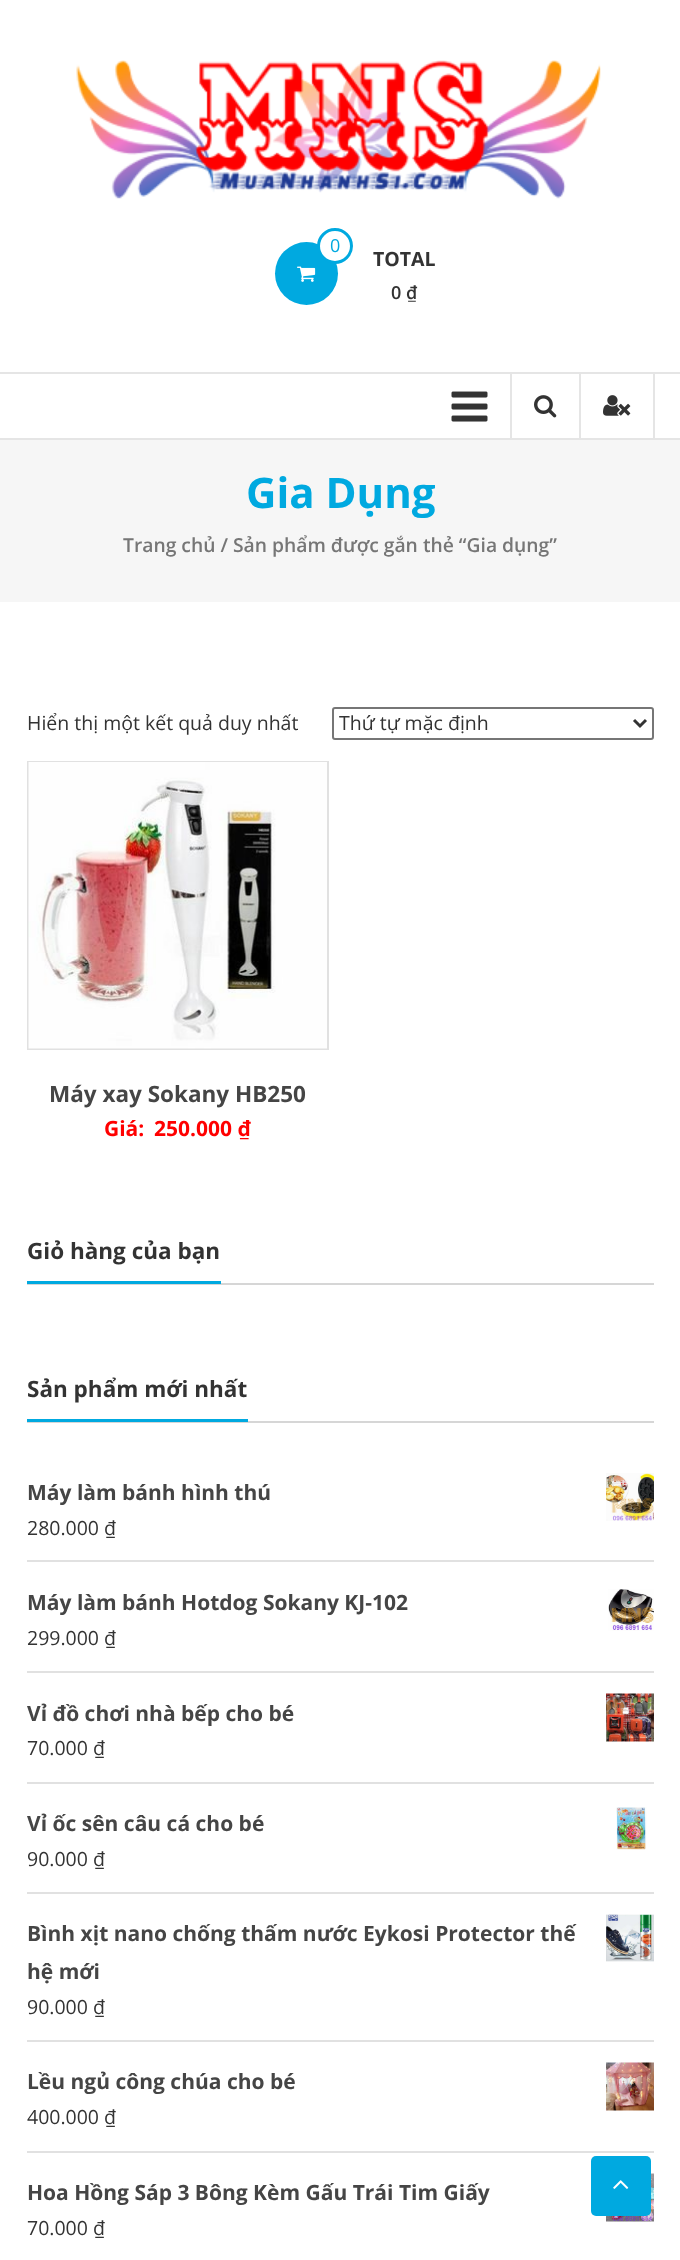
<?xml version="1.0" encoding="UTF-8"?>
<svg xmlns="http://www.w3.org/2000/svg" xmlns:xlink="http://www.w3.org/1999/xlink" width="680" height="2260">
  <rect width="100%" height="100%" fill="#ffffff" />
  <image x="76" y="60" width="525" height="139" xlink:href="image1.png" />
  <circle cx="306.5" cy="273.5" r="31.5" fill="#00a9e0" />
  <circle cx="335" cy="246" r="16.5" fill="#ffffff" stroke="#00a9e0" stroke-width="3" />
  <image x="297" y="266" width="19" height="16" xlink:href="image2.png" />
  <rect y="372" width="680" height="2" fill="#e5e5e5" />
  <rect y="438" width="680" height="2" fill="#e5e5e5" />
  <image x="451" y="391" width="37" height="31" xlink:href="image3.png" />
  <rect x="510" y="374" width="2" height="64" fill="#e5e5e5" />
  <image x="534" y="395" width="23" height="23" xlink:href="image4.png" />
  <rect x="653" y="374" width="2" height="64" fill="#e5e5e5" />
  <rect x="579" y="374" width="2" height="64" fill="#e5e5e5" />
  <image x="603" y="395" width="28" height="21" xlink:href="image5.png" />
  <rect y="440" width="680" height="162" fill="#f6f6f6" />
  <rect x="333" y="708" width="320" height="31" rx="2" fill="none" stroke="#767676" stroke-width="2" />
  <path d="M 634 720 l 6 6 l 6 -6" fill="none" stroke="#333333" stroke-width="3" />
  <rect x="28" y="762" width="300" height="287" fill="none" stroke="#e1e1e1" stroke-width="2" />
  <image x="28" y="762" width="299" height="287" xlink:href="image6.png" />
  <rect x="27" y="1283" width="627" height="2" fill="#d6d6d6" />
  <rect x="27" y="1281" width="194" height="3" fill="#00a9e0" />
  <rect x="27" y="1421" width="627" height="2" fill="#d6d6d6" />
  <rect x="27" y="1419" width="221" height="3" fill="#00a9e0" />
  <rect x="27" y="1560" width="627" height="2" fill="#e1e1e1" />
  <image x="606" y="1473" width="48" height="48" xlink:href="image7.png" />
  <rect x="27" y="1671" width="627" height="2" fill="#e1e1e1" />
  <image x="608" y="1589" width="46" height="42" xlink:href="image8.png" />
  <rect x="27" y="1782" width="627" height="2" fill="#e1e1e1" />
  <image x="606" y="1693" width="48" height="49" xlink:href="image9.png" />
  <rect x="27" y="1892" width="627" height="2" fill="#e1e1e1" />
  <image x="616" y="1807" width="31" height="43" xlink:href="image10.png" />
  <rect x="27" y="2040" width="627" height="2" fill="#e1e1e1" />
  <image x="606" y="1914" width="48" height="48" xlink:href="image11.png" />
  <rect x="27" y="2151" width="627" height="2" fill="#e1e1e1" />
  <image x="606" y="2062" width="48" height="49" xlink:href="image12.png" />
  <image x="606" y="2173" width="48" height="49" xlink:href="image13.png" />
  <rect x="591" y="2156" width="60" height="60" rx="5" fill="#00a9e0" />
  <image x="613" y="2180" width="16" height="9" xlink:href="image14.png" />
  <text x="330" y="252" style="font-family: Open Sans; font-size: 18px; fill: #00a9e0">0</text>
  <text x="373" y="266" style="font-family: Open Sans; font-size: 19.5px; font-weight: bold; fill: #333333">TOTAL</text>
  <text x="391" y="299" style="font-family: Open Sans; font-size: 18px; font-weight: 600; fill: #333333">0 ₫</text>
  <text x="246" y="508" style="font-family: Open Sans; font-size: 42px; font-weight: bold; fill: #00a9e0">Gia Dụng</text>
  <text x="123" y="552" style="font-family: Open Sans; font-size: 19.3px; font-weight: 600; fill: #767676">Trang chủ / Sản phẩm được gắn thẻ “Gia dụng”</text>
  <text x="27" y="730" style="font-family: Open Sans; font-size: 19.5px; fill: #333333">Hiển thị một kết quả duy nhất</text>
  <text x="339" y="730" style="font-family: Open Sans; font-size: 19.5px; fill: #333333">Thứ tự mặc định</text>
  <text x="49" y="1102" style="font-family: Open Sans; font-size: 22.5px; font-weight: bold; fill: #454545">Máy xay Sokany HB250</text>
  <text x="104" y="1136" style="font-family: Open Sans; font-size: 21px; font-weight: bold; fill: #ff0000">Giá:</text>
  <text x="154" y="1136" style="font-family: Open Sans; font-size: 21px; font-weight: bold; fill: #ff0000">250.000 ₫</text>
  <text x="27" y="1259" style="font-family: Open Sans; font-size: 22.5px; font-weight: bold; fill: #333333">Giỏ hàng của bạn</text>
  <text x="27" y="1397" style="font-family: Open Sans; font-size: 22.5px; font-weight: bold; fill: #333333">Sản phẩm mới nhất</text>
  <text x="27" y="1500" style="font-family: Open Sans; font-size: 21px; font-weight: bold; fill: #454545">Máy làm bánh hình thú</text>
  <text x="27" y="1535" style="font-family: Open Sans; font-size: 19.5px; fill: #333333">280.000 ₫</text>
  <text x="27" y="1610" style="font-family: Open Sans; font-size: 21px; font-weight: bold; fill: #454545">Máy làm bánh Hotdog Sokany KJ-102</text>
  <text x="27" y="1645" style="font-family: Open Sans; font-size: 19.5px; fill: #333333">299.000 ₫</text>
  <text x="27" y="1721" style="font-family: Open Sans; font-size: 21px; font-weight: bold; fill: #454545">Vỉ đồ chơi nhà bếp cho bé</text>
  <text x="27" y="1755" style="font-family: Open Sans; font-size: 19.5px; fill: #333333">70.000 ₫</text>
  <text x="27" y="1831" style="font-family: Open Sans; font-size: 21px; font-weight: bold; fill: #454545">Vỉ ốc sên câu cá cho bé</text>
  <text x="27" y="1866" style="font-family: Open Sans; font-size: 19.5px; fill: #333333">90.000 ₫</text>
  <text x="27" y="1941" style="font-family: Open Sans; font-size: 21px; font-weight: bold; fill: #454545">Bình xịt nano chống thấm nước Eykosi Protector thế</text>
  <text x="27" y="1979" style="font-family: Open Sans; font-size: 21px; font-weight: bold; fill: #454545">hệ mới</text>
  <text x="27" y="2014" style="font-family: Open Sans; font-size: 19.5px; fill: #333333">90.000 ₫</text>
  <text x="27" y="2089" style="font-family: Open Sans; font-size: 21px; font-weight: bold; fill: #454545">Lều ngủ công chúa cho bé</text>
  <text x="27" y="2124" style="font-family: Open Sans; font-size: 19.5px; fill: #333333">400.000 ₫</text>
  <text x="27" y="2200" style="font-family: Open Sans; font-size: 21px; font-weight: bold; fill: #454545">Hoa Hồng Sáp 3 Bông Kèm Gấu Trái Tim Giấy</text>
  <text x="27" y="2235" style="font-family: Open Sans; font-size: 19.5px; fill: #333333">70.000 ₫</text>
</svg>
